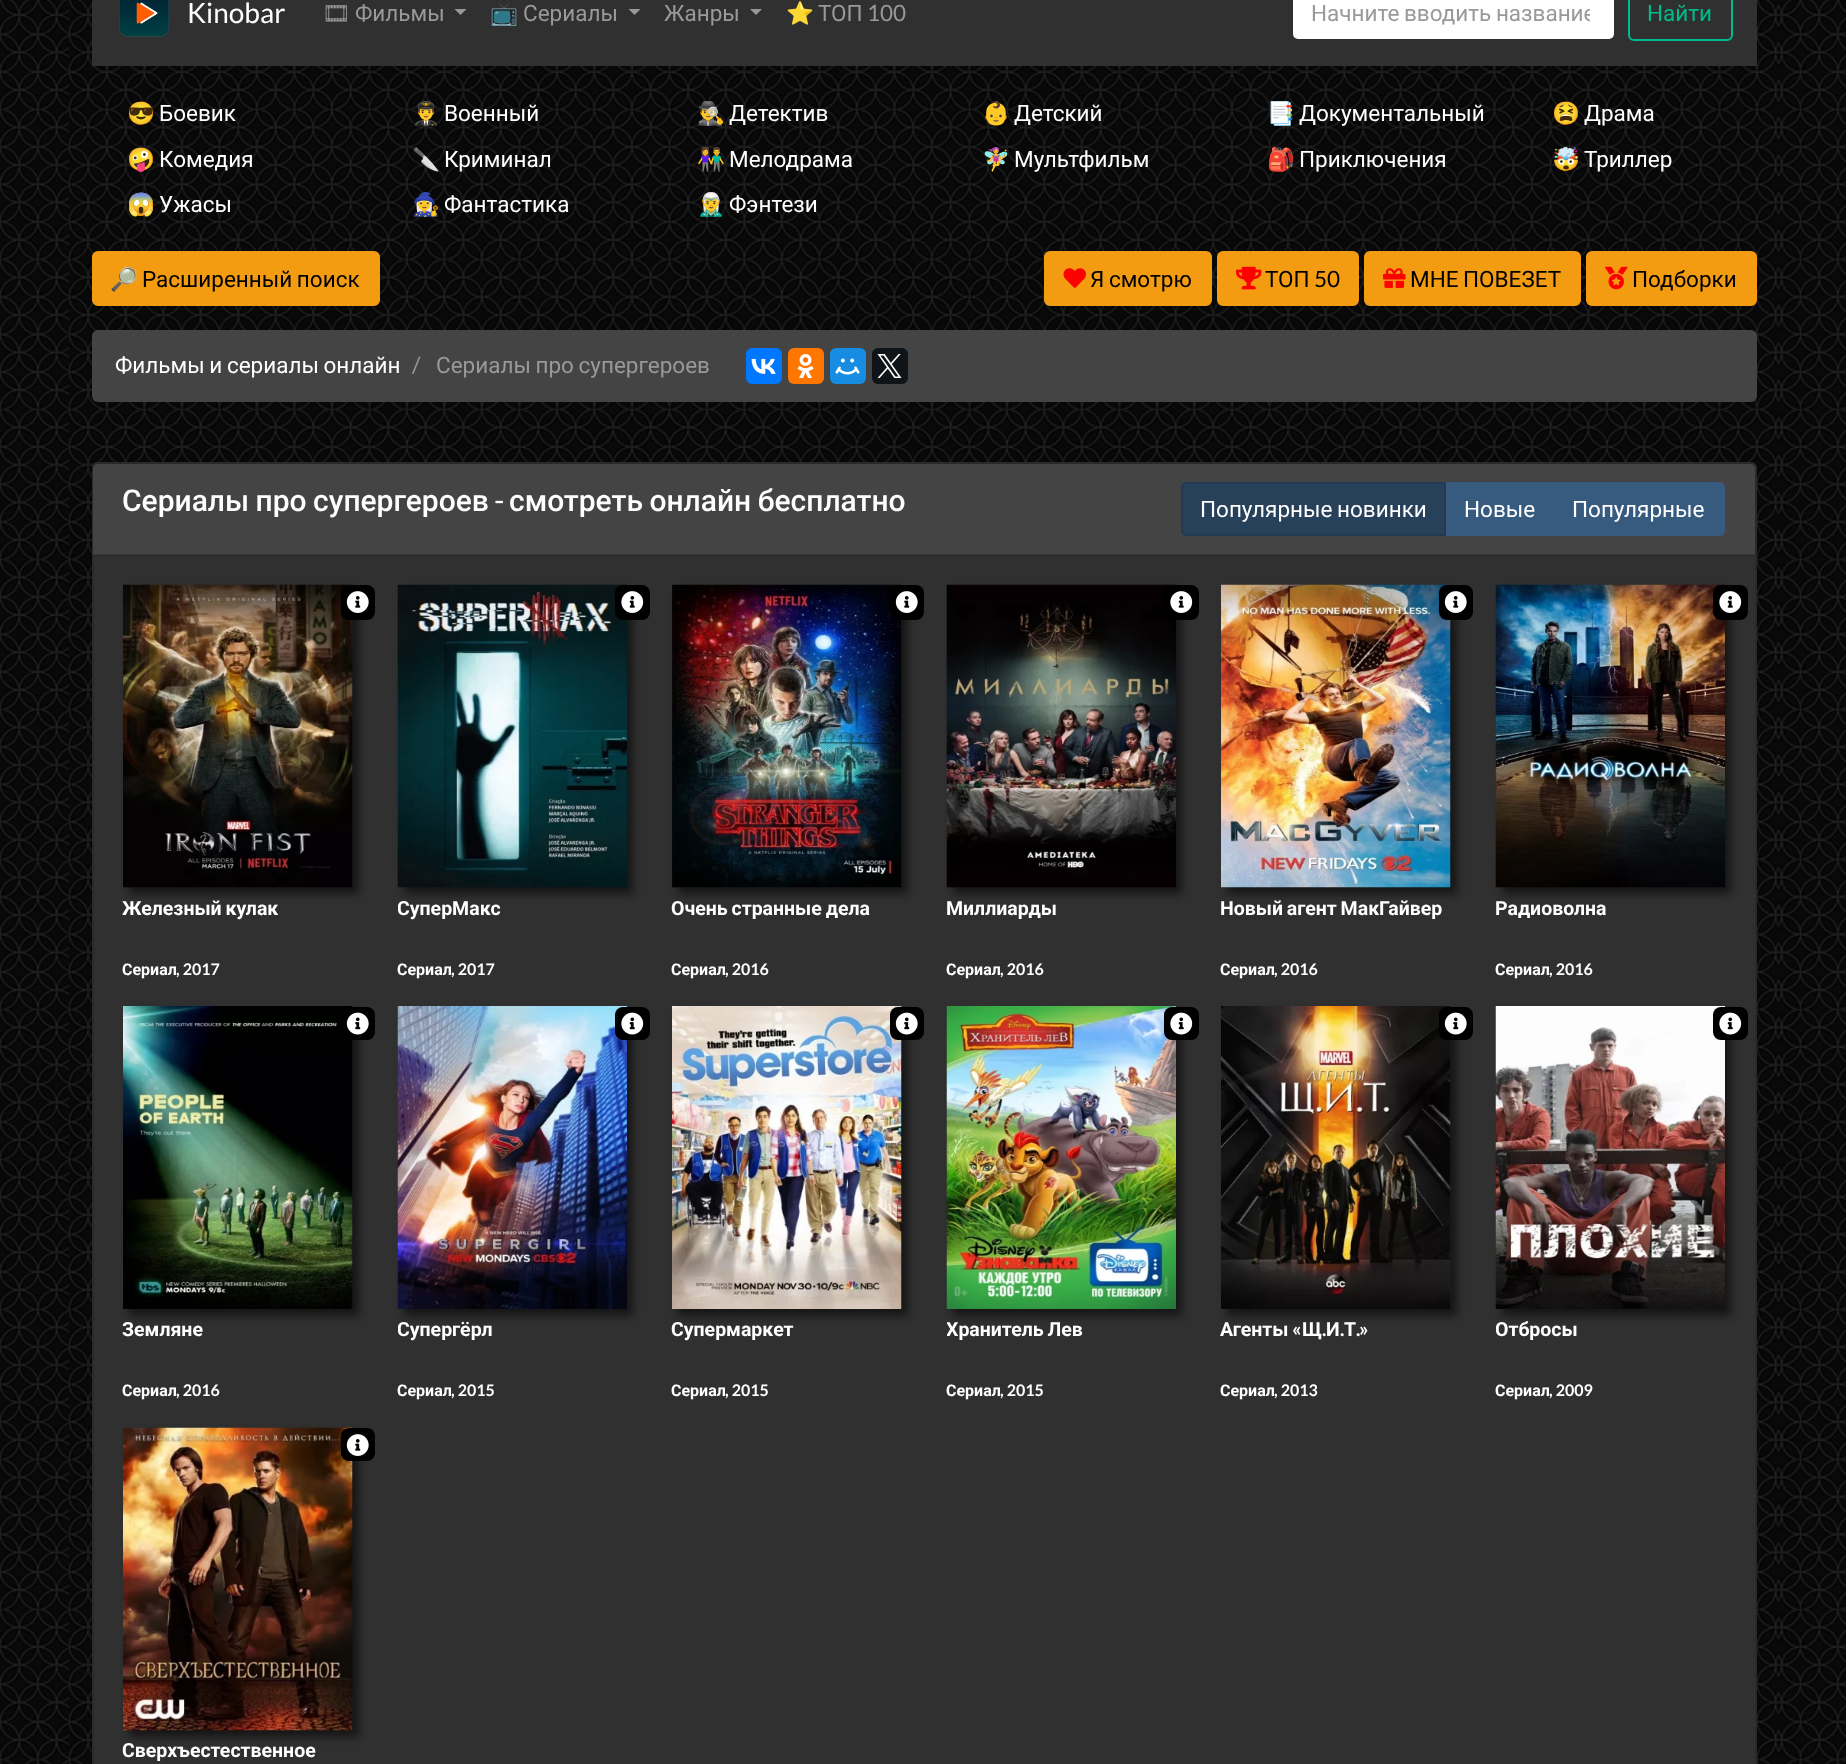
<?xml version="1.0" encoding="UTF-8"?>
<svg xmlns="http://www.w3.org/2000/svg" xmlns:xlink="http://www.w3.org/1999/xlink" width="1846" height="1764">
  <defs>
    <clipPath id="clip1"><rect x="1311" width="279" height="27" /></clipPath>
    <clipPath id="clip2"><rect x="398" y="894" width="229" height="65" /></clipPath>
    <clipPath id="clip3"><rect x="398" y="1316" width="229" height="64" /></clipPath>
    <clipPath id="clip4"><rect x="947" y="1316" width="229" height="64" /></clipPath>
    <clipPath id="clip5"><rect x="1496" y="1316" width="229" height="64" /></clipPath>
  </defs>
  <rect width="100%" height="100%" fill="#ffffff" />
  <image x="0" y="0" width="1846" height="1764" xlink:href="image1.png" />
  <image x="69" y="0" width="1710" height="1764" xlink:href="image2.png" />
  <rect x="92" width="1665" height="66" fill="#303030" />
  <image x="119" y="0" width="50" height="37" xlink:href="image3.png" />
  <path d="M 454.5 9 h 12 l -6 6 z" fill="#989898" />
  <path d="M 628.5 9 h 12 l -6 6 z" fill="#989898" />
  <path d="M 750 9 h 12 l -6 6 z" fill="#989898" />
  <rect x="1293" y="-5" width="321" height="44" rx="5" fill="#ffffff" />
  <rect x="1629" y="-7" width="103" height="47" rx="5" fill="none" stroke="#00bc8c" stroke-width="2" />
  <rect x="93" y="252" width="286" height="53" rx="5" fill="#f39c12" stroke="#f39c12" stroke-width="2" />
  <rect x="1045" y="252" width="166" height="53" rx="5" fill="#f39c12" stroke="#f39c12" stroke-width="2" />
  <image x="1063" y="268" width="23" height="20" xlink:href="image4.png" />
  <rect x="1218" y="252" width="140" height="53" rx="5" fill="#f39c12" stroke="#f39c12" stroke-width="2" />
  <image x="1236" y="266" width="26" height="24" xlink:href="image5.png" />
  <rect x="1365" y="252" width="215" height="53" rx="5" fill="#f39c12" stroke="#f39c12" stroke-width="2" />
  <image x="1383" y="268" width="23" height="20" xlink:href="image6.png" />
  <rect x="1587" y="252" width="169" height="53" rx="5" fill="#f39c12" stroke="#f39c12" stroke-width="2" />
  <image x="1605" y="266" width="23" height="24" xlink:href="image7.png" />
  <rect x="92" y="330" width="1665" height="72" rx="6" fill="#444444" />
  <rect x="746" y="348" width="36" height="36" rx="6" fill="#0077ff" />
  <image x="751" y="358" width="25" height="16" xlink:href="image8.png" />
  <rect x="788" y="348" width="36" height="36" rx="6" fill="#ff7700" />
  <image x="797" y="354" width="17" height="24" xlink:href="image9.png" />
  <rect x="830" y="348" width="36" height="36" rx="6" fill="#168de2" />
  <image x="835" y="358" width="25" height="17" xlink:href="image10.png" />
  <rect x="872" y="348" width="36" height="36" rx="6" fill="#0f1419" />
  <image x="877" y="354" width="25" height="24" xlink:href="image11.png" />
  <rect x="92" y="462" width="1665" height="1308" rx="6" fill="#303030" />
  <rect x="93" y="463" width="1663" height="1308" rx="5" fill="none" stroke="#000000" stroke-opacity="0.12" stroke-width="2" />
  <path d="M 98 464 h 1652 c 3 0 5 2 5 5 v 86 h -1662 v -86 c 0 -3 2 -5 5 -5 z" fill="#444444" />
  <rect x="93" y="554" width="1662" height="2" fill="#000000" fill-opacity="0.12" />
  <path d="M 1187 483 h 258 v 52 h -258 c -3 0 -5 -2 -5 -5 v -42 c 0 -3 2 -5 5 -5 z" fill="#28415b" stroke="#243a53" stroke-width="2" />
  <rect x="1446" y="482" width="107" height="54" fill="#375a7f" />
  <path d="M 1554 483 h 165 c 3 0 5 2 5 5 v 42 c 0 3 -2 5 -5 5 h -165 z" fill="#375a7f" stroke="#375a7f" stroke-width="2" />
  <rect x="129" y="591" width="230" height="303" fill="#000000" fill-opacity="0.54" filter="blur(4.5px)" />
  <image x="123" y="584" width="230" height="304" xlink:href="image12.png" />
  <rect x="341" y="585" width="34" height="35" rx="8" fill="#000000" />
  <image x="346" y="591" width="23" height="22" xlink:href="image13.png" />
  <rect x="404" y="591" width="229" height="303" fill="#000000" fill-opacity="0.54" filter="blur(4.5px)" />
  <image x="397" y="584" width="230" height="304" xlink:href="image14.png" />
  <rect x="615" y="585" width="35" height="35" rx="8" fill="#000000" />
  <image x="621" y="591" width="23" height="22" xlink:href="image15.png" />
  <rect x="678" y="591" width="230" height="303" fill="#000000" fill-opacity="0.54" filter="blur(4.5px)" />
  <image x="672" y="584" width="230" height="304" xlink:href="image16.png" />
  <rect x="890" y="585" width="34" height="35" rx="8" fill="#000000" />
  <image x="895" y="591" width="23" height="22" xlink:href="image13.png" />
  <rect x="953" y="591" width="229" height="303" fill="#000000" fill-opacity="0.54" filter="blur(4.5px)" />
  <image x="946" y="584" width="230" height="304" xlink:href="image17.png" />
  <rect x="1164" y="585" width="35" height="35" rx="8" fill="#000000" />
  <image x="1170" y="591" width="23" height="22" xlink:href="image15.png" />
  <rect x="1227" y="591" width="230" height="303" fill="#000000" fill-opacity="0.54" filter="blur(4.5px)" />
  <image x="1221" y="584" width="230" height="304" xlink:href="image18.png" />
  <rect x="1439" y="585" width="34" height="35" rx="8" fill="#000000" />
  <image x="1444" y="591" width="23" height="22" xlink:href="image13.png" />
  <rect x="1502" y="591" width="229" height="303" fill="#000000" fill-opacity="0.54" filter="blur(4.5px)" />
  <image x="1495" y="584" width="230" height="304" xlink:href="image19.png" />
  <rect x="1713" y="585" width="35" height="35" rx="8" fill="#000000" />
  <image x="1719" y="591" width="23" height="22" xlink:href="image15.png" />
  <rect x="129" y="1013" width="230" height="303" fill="#000000" fill-opacity="0.54" filter="blur(4.5px)" />
  <image x="123" y="1006" width="230" height="303" xlink:href="image20.png" />
  <rect x="341" y="1007" width="34" height="33" rx="8" fill="#000000" />
  <image x="346" y="1012" width="23" height="23" xlink:href="image21.png" />
  <rect x="404" y="1013" width="229" height="303" fill="#000000" fill-opacity="0.54" filter="blur(4.5px)" />
  <image x="397" y="1006" width="230" height="303" xlink:href="image22.png" />
  <rect x="615" y="1007" width="35" height="33" rx="8" fill="#000000" />
  <image x="621" y="1012" width="23" height="23" xlink:href="image23.png" />
  <rect x="678" y="1013" width="230" height="303" fill="#000000" fill-opacity="0.54" filter="blur(4.5px)" />
  <image x="672" y="1006" width="230" height="303" xlink:href="image24.png" />
  <rect x="890" y="1007" width="34" height="33" rx="8" fill="#000000" />
  <image x="895" y="1012" width="23" height="23" xlink:href="image21.png" />
  <rect x="953" y="1013" width="229" height="303" fill="#000000" fill-opacity="0.54" filter="blur(4.5px)" />
  <image x="946" y="1006" width="230" height="303" xlink:href="image25.png" />
  <rect x="1164" y="1007" width="35" height="33" rx="8" fill="#000000" />
  <image x="1170" y="1012" width="23" height="23" xlink:href="image23.png" />
  <rect x="1227" y="1013" width="230" height="303" fill="#000000" fill-opacity="0.54" filter="blur(4.5px)" />
  <image x="1221" y="1006" width="230" height="303" xlink:href="image26.png" />
  <rect x="1439" y="1007" width="34" height="33" rx="8" fill="#000000" />
  <image x="1444" y="1012" width="23" height="23" xlink:href="image21.png" />
  <rect x="1502" y="1013" width="229" height="303" fill="#000000" fill-opacity="0.54" filter="blur(4.5px)" />
  <image x="1495" y="1006" width="230" height="303" xlink:href="image27.png" />
  <rect x="1713" y="1007" width="35" height="33" rx="8" fill="#000000" />
  <image x="1719" y="1012" width="23" height="23" xlink:href="image23.png" />
  <rect x="129" y="1434" width="230" height="303" fill="#000000" fill-opacity="0.54" filter="blur(4.5px)" />
  <image x="123" y="1427" width="230" height="304" xlink:href="image28.png" />
  <rect x="341" y="1428" width="34" height="33" rx="8" fill="#000000" />
  <image x="346" y="1434" width="23" height="22" xlink:href="image13.png" />
  <text x="187" y="23" style="font-family: Lato; font-size: 28px; fill: #ffffff">Kinobar</text>
  <text x="322" y="21" style="font-family: Noto Emoji; font-size: 22.5px; fill: #999999">🎞</text>
  <text x="355" y="21" style="font-family: Roboto; font-size: 22.5px; fill: #999999">Фильмы</text>
  <text x="490" y="21" style="font-family: Noto Color Emoji; font-size: 22.5px; fill: #999999">📺</text>
  <text x="523" y="21" style="font-family: Roboto; font-size: 22.5px; fill: #999999">Сериалы</text>
  <text x="664" y="21" style="font-family: Roboto; font-size: 22.5px; fill: #999999">Жанры</text>
  <text x="786" y="21" style="font-family: Noto Color Emoji; font-size: 22.5px; fill: #999999">⭐</text>
  <text x="818" y="21" style="font-family: Roboto; font-size: 22.5px; fill: #999999">ТОП</text>
  <text x="867" y="21" style="font-family: Lato; font-size: 22.5px; fill: #999999">100</text>
  <g clip-path="url(#clip1)">
    <text x="1311" y="21" word-spacing="-1" style="font-family: Roboto; font-size: 22.5px; fill: #999999">Начните вводить название</text>
  </g>
  <text x="1647" y="21" style="font-family: Roboto; font-size: 22.5px; fill: #00bc8c">Найти</text>
  <text x="127" y="121" style="font-family: Noto Color Emoji; font-size: 22.5px; fill: #ffffff">😎</text>
  <text x="159" y="121" style="font-family: Roboto; font-size: 22.5px; fill: #ffffff">Боевик</text>
  <text x="412" y="121" style="font-family: Noto Color Emoji; font-size: 22.5px; fill: #ffffff">👨‍✈️</text>
  <text x="444" y="121" style="font-family: Roboto; font-size: 22.5px; fill: #ffffff">Военный</text>
  <text x="697" y="121" style="font-family: Noto Color Emoji; font-size: 22.5px; fill: #ffffff">🕵️‍♂️</text>
  <text x="729" y="121" style="font-family: Roboto; font-size: 22.5px; fill: #ffffff">Детектив</text>
  <text x="982" y="121" style="font-family: Noto Color Emoji; font-size: 22.5px; fill: #ffffff">👶</text>
  <text x="1014" y="121" style="font-family: Roboto; font-size: 22.5px; fill: #ffffff">Детский</text>
  <text x="1267" y="121" style="font-family: Noto Color Emoji; font-size: 22.5px; fill: #ffffff">📑</text>
  <text x="1299" y="121" style="font-family: Roboto; font-size: 22.5px; fill: #ffffff">Документальный</text>
  <text x="1552" y="121" style="font-family: Noto Color Emoji; font-size: 22.5px; fill: #ffffff">😫</text>
  <text x="1584" y="121" style="font-family: Roboto; font-size: 22.5px; fill: #ffffff">Драма</text>
  <text x="127" y="167" style="font-family: Noto Color Emoji; font-size: 22.5px; fill: #ffffff">🤪</text>
  <text x="159" y="167" style="font-family: Roboto; font-size: 22.5px; fill: #ffffff">Комедия</text>
  <text x="412" y="167" style="font-family: Noto Color Emoji; font-size: 22.5px; fill: #ffffff">🔪</text>
  <text x="444" y="167" style="font-family: Roboto; font-size: 22.5px; fill: #ffffff">Криминал</text>
  <text x="697" y="167" style="font-family: Noto Color Emoji; font-size: 22.5px; fill: #ffffff">👫</text>
  <text x="729" y="167" style="font-family: Roboto; font-size: 22.5px; fill: #ffffff">Мелодрама</text>
  <text x="982" y="167" style="font-family: Noto Color Emoji; font-size: 22.5px; fill: #ffffff">🧚‍♀️</text>
  <text x="1014" y="167" style="font-family: Roboto; font-size: 22.5px; fill: #ffffff">Мультфильм</text>
  <text x="1267" y="167" style="font-family: Noto Color Emoji; font-size: 22.5px; fill: #ffffff">🎒</text>
  <text x="1299" y="167" style="font-family: Roboto; font-size: 22.5px; fill: #ffffff">Приключения</text>
  <text x="1552" y="167" style="font-family: Noto Color Emoji; font-size: 22.5px; fill: #ffffff">🤯</text>
  <text x="1584" y="167" style="font-family: Roboto; font-size: 22.5px; fill: #ffffff">Триллер</text>
  <text x="127" y="212" style="font-family: Noto Color Emoji; font-size: 22.5px; fill: #ffffff">😱</text>
  <text x="159" y="212" style="font-family: Roboto; font-size: 22.5px; fill: #ffffff">Ужасы</text>
  <text x="412" y="212" style="font-family: Noto Color Emoji; font-size: 22.5px; fill: #ffffff">🧙‍♀️</text>
  <text x="444" y="212" style="font-family: Roboto; font-size: 22.5px; fill: #ffffff">Фантастика</text>
  <text x="697" y="212" style="font-family: Noto Color Emoji; font-size: 22.5px; fill: #ffffff">🧝‍♂️</text>
  <text x="729" y="212" style="font-family: Roboto; font-size: 22.5px; fill: #ffffff">Фэнтези</text>
  <text x="110" y="287" style="font-family: Noto Color Emoji; font-size: 22.5px; fill: #000000">🔎</text>
  <text x="142" y="287" word-spacing="-1" style="font-family: Roboto; font-size: 22.5px; fill: #000000">Расширенный поиск</text>
  <text x="1090" y="287" word-spacing="-1" style="font-family: Roboto; font-size: 22.5px; fill: #000000">Я смотрю</text>
  <text x="1265" y="287" style="font-family: Roboto; font-size: 22.5px; fill: #000000">ТОП</text>
  <text x="1314" y="287" style="font-family: Lato; font-size: 22.5px; fill: #000000">50</text>
  <text x="1410" y="287" word-spacing="-1" style="font-family: Roboto; font-size: 22.5px; fill: #000000">МНЕ ПОВЕЗЕТ</text>
  <text x="1632" y="287" style="font-family: Roboto; font-size: 22.5px; fill: #000000">Подборки</text>
  <text x="115" y="373" word-spacing="-1" style="font-family: Roboto; font-size: 22.5px; fill: #ffffff">Фильмы и сериалы онлайн</text>
  <text x="412" y="373" style="font-family: Lato; font-size: 22.5px; fill: #999999">/</text>
  <text x="436" y="373" word-spacing="-1" style="font-family: Roboto; font-size: 22.5px; fill: #999999">Сериалы про супергероев</text>
  <text x="122" y="511" word-spacing="-1" style="font-family: Roboto; font-size: 30px; font-weight: 500; fill: #ffffff">Сериалы про супергероев</text>
  <text x="494" y="511" style="font-family: Lato; font-size: 30px; fill: #ffffff">-</text>
  <text x="509" y="511" word-spacing="-1" style="font-family: Roboto; font-size: 30px; font-weight: 500; fill: #ffffff">смотреть онлайн бесплатно</text>
  <text x="1200" y="517" word-spacing="-1" style="font-family: Roboto; font-size: 22.5px; fill: #ffffff">Популярные новинки</text>
  <text x="1464" y="517" style="font-family: Roboto; font-size: 22.5px; fill: #ffffff">Новые</text>
  <text x="1572" y="517" style="font-family: Roboto; font-size: 22.5px; fill: #ffffff">Популярные</text>
  <text x="122" y="915" word-spacing="-1" style="font-family: Roboto; font-size: 19.5px; font-weight: bold; fill: #ffffff">Железный кулак</text>
  <text x="122" y="975" style="font-family: Roboto; font-size: 16px; font-weight: bold; fill: #ffffff">Сериал</text>
  <text x="176" y="975" style="font-family: Lato; font-size: 16px; font-weight: bold; fill: #ffffff">, 2017</text>
  <g clip-path="url(#clip2)">
    <text x="397" y="915" style="font-family: Roboto; font-size: 19.5px; font-weight: bold; fill: #ffffff">СуперМакс</text>
  </g>
  <text x="397" y="975" style="font-family: Roboto; font-size: 16px; font-weight: bold; fill: #ffffff">Сериал</text>
  <text x="451" y="975" style="font-family: Lato; font-size: 16px; font-weight: bold; fill: #ffffff">, 2017</text>
  <text x="671" y="915" word-spacing="-1" style="font-family: Roboto; font-size: 19.5px; font-weight: bold; fill: #ffffff">Очень странные дела</text>
  <text x="671" y="975" style="font-family: Roboto; font-size: 16px; font-weight: bold; fill: #ffffff">Сериал</text>
  <text x="725" y="975" style="font-family: Lato; font-size: 16px; font-weight: bold; fill: #ffffff">, 2016</text>
  <text x="946" y="915" style="font-family: Roboto; font-size: 19.5px; font-weight: bold; fill: #ffffff">Миллиарды</text>
  <text x="946" y="975" style="font-family: Roboto; font-size: 16px; font-weight: bold; fill: #ffffff">Сериал</text>
  <text x="1000" y="975" style="font-family: Lato; font-size: 16px; font-weight: bold; fill: #ffffff">, 2016</text>
  <text x="1220" y="915" word-spacing="-1" style="font-family: Roboto; font-size: 19.5px; font-weight: bold; fill: #ffffff">Новый агент МакГайвер</text>
  <text x="1220" y="975" style="font-family: Roboto; font-size: 16px; font-weight: bold; fill: #ffffff">Сериал</text>
  <text x="1274" y="975" style="font-family: Lato; font-size: 16px; font-weight: bold; fill: #ffffff">, 2016</text>
  <text x="1495" y="915" style="font-family: Roboto; font-size: 19.5px; font-weight: bold; fill: #ffffff">Радиоволна</text>
  <text x="1495" y="975" style="font-family: Roboto; font-size: 16px; font-weight: bold; fill: #ffffff">Сериал</text>
  <text x="1549" y="975" style="font-family: Lato; font-size: 16px; font-weight: bold; fill: #ffffff">, 2016</text>
  <text x="122" y="1336" style="font-family: Roboto; font-size: 19.5px; font-weight: bold; fill: #ffffff">Земляне</text>
  <text x="122" y="1396" style="font-family: Roboto; font-size: 16px; font-weight: bold; fill: #ffffff">Сериал</text>
  <text x="176" y="1396" style="font-family: Lato; font-size: 16px; font-weight: bold; fill: #ffffff">, 2016</text>
  <g clip-path="url(#clip3)">
    <text x="397" y="1336" style="font-family: Roboto; font-size: 19.5px; font-weight: bold; fill: #ffffff">Супергёрл</text>
  </g>
  <text x="397" y="1396" style="font-family: Roboto; font-size: 16px; font-weight: bold; fill: #ffffff">Сериал</text>
  <text x="451" y="1396" style="font-family: Lato; font-size: 16px; font-weight: bold; fill: #ffffff">, 2015</text>
  <text x="671" y="1336" style="font-family: Roboto; font-size: 19.5px; font-weight: bold; fill: #ffffff">Супермаркет</text>
  <text x="671" y="1396" style="font-family: Roboto; font-size: 16px; font-weight: bold; fill: #ffffff">Сериал</text>
  <text x="725" y="1396" style="font-family: Lato; font-size: 16px; font-weight: bold; fill: #ffffff">, 2015</text>
  <g clip-path="url(#clip4)">
    <text x="946" y="1336" word-spacing="-1" style="font-family: Roboto; font-size: 19.5px; font-weight: bold; fill: #ffffff">Хранитель Лев</text>
  </g>
  <text x="946" y="1396" style="font-family: Roboto; font-size: 16px; font-weight: bold; fill: #ffffff">Сериал</text>
  <text x="1000" y="1396" style="font-family: Lato; font-size: 16px; font-weight: bold; fill: #ffffff">, 2015</text>
  <text x="1220" y="1336" style="font-family: Roboto; font-size: 19.5px; font-weight: bold; fill: #ffffff">Агенты</text>
  <text x="1292" y="1336" style="font-family: Lato; font-size: 19.5px; font-weight: bold; fill: #ffffff">«</text>
  <text x="1302" y="1336" style="font-family: Roboto; font-size: 19.5px; font-weight: bold; fill: #ffffff">Щ</text>
  <text x="1322" y="1336" style="font-family: Lato; font-size: 19.5px; font-weight: bold; fill: #ffffff">.</text>
  <text x="1326" y="1336" style="font-family: Roboto; font-size: 19.5px; font-weight: bold; fill: #ffffff">И</text>
  <text x="1340" y="1336" style="font-family: Lato; font-size: 19.5px; font-weight: bold; fill: #ffffff">.</text>
  <text x="1344" y="1336" style="font-family: Roboto; font-size: 19.5px; font-weight: bold; fill: #ffffff">Т</text>
  <text x="1356" y="1336" style="font-family: Lato; font-size: 19.5px; font-weight: bold; fill: #ffffff">.»</text>
  <text x="1220" y="1396" style="font-family: Roboto; font-size: 16px; font-weight: bold; fill: #ffffff">Сериал</text>
  <text x="1274" y="1396" style="font-family: Lato; font-size: 16px; font-weight: bold; fill: #ffffff">, 2013</text>
  <g clip-path="url(#clip5)">
    <text x="1495" y="1336" style="font-family: Roboto; font-size: 19.5px; font-weight: bold; fill: #ffffff">Отбросы</text>
  </g>
  <text x="1495" y="1396" style="font-family: Roboto; font-size: 16px; font-weight: bold; fill: #ffffff">Сериал</text>
  <text x="1549" y="1396" style="font-family: Lato; font-size: 16px; font-weight: bold; fill: #ffffff">, 2009</text>
  <text x="122" y="1757" style="font-family: Roboto; font-size: 19.5px; font-weight: bold; fill: #ffffff">Сверхъестественное</text>
</svg>
